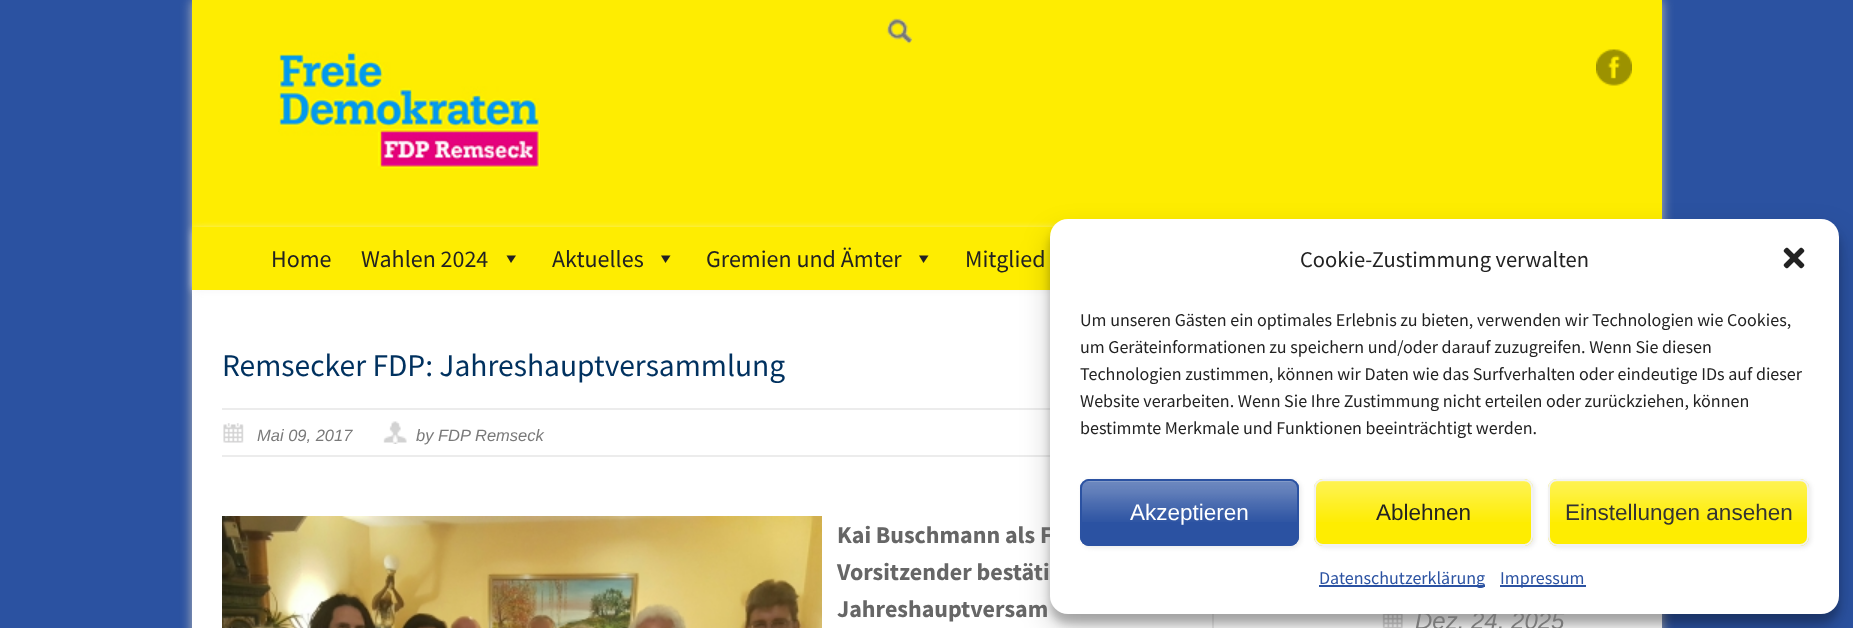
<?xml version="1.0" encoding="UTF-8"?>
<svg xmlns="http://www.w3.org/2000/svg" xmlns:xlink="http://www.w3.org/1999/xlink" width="1853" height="628">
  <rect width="100%" height="100%" fill="#2b52a1" />
  <rect x="192" width="1470" height="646" fill="#bbbbbb" filter="blur(6px)" />
  <rect x="192" y="290" width="1470" height="338" fill="#ffffff" />
  <rect x="192" width="1470" height="227" fill="#feed01" />
  <image x="278" y="51" width="262" height="118" xlink:href="image1.png" />
  <image x="1596" y="49" width="36" height="37" xlink:href="image2.png" />
  <rect x="194" y="230" width="1467" height="60" fill="#f5f5f5" filter="blur(4px)" />
  <rect x="192" y="227" width="861" height="63" fill="#feed01" />
  <image x="886" y="18" width="26" height="26" xlink:href="image3.png" />
  <path d="M 516 255.5 l -5 7.5 l -4.5 -7.5 z" fill="#222222" />
  <path d="M 670.5 255.5 l -5 7.5 l -4.5 -7.5 z" fill="#222222" />
  <path d="M 928.5 255.5 l -5 7.5 l -4.5 -7.5 z" fill="#222222" />
  <rect x="222" y="408" width="828" height="2" fill="#ececec" />
  <rect x="222" y="455" width="828" height="2" fill="#ececec" />
  <image x="223" y="423" width="21" height="20" xlink:href="image4.png" />
  <image x="383" y="421" width="24" height="23" xlink:href="image5.png" />
  <image x="222" y="516" width="600" height="112" xlink:href="image6.png" />
  <rect x="1212" y="614" width="2" height="14" fill="#ececec" />
  <image x="1382" y="614" width="21" height="14" xlink:href="image7.png" />
  <rect x="1050" y="228" width="789" height="395" rx="18" fill="#000000" fill-opacity="0.23" filter="blur(4.5px)" />
  <rect x="1050" y="234" width="789" height="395" rx="18" fill="#000000" fill-opacity="0.19" filter="blur(15px)" />
  <text x="271" y="267" style="font-family: Source Sans Pro; font-size: 24px; fill: #222222">Home</text>
  <text x="361" y="267" style="font-family: Source Sans Pro; font-size: 24px; fill: #222222">Wahlen 2024</text>
  <text x="552" y="267" style="font-family: Source Sans Pro; font-size: 24px; fill: #222222">Aktuelles</text>
  <text x="706" y="267" style="font-family: Source Sans Pro; font-size: 24px; fill: #222222">Gremien und Ämter</text>
  <text x="965" y="267" style="font-family: Source Sans Pro; font-size: 24px; fill: #222222">Mitglied</text>
  <text x="222" y="376" style="font-family: Source Sans Pro; font-size: 31.5px; fill: #00315f">Remsecker FDP: Jahreshauptversammlung</text>
  <text x="257" y="441" style="font-family: Liberation Sans; font-size: 16.5px; font-style: italic; fill: #797979">Mai 09, 2017</text>
  <text x="416" y="441" style="font-family: Liberation Sans; font-size: 16.5px; font-style: italic; fill: #797979">by FDP Remseck</text>
  <text x="837" y="543" style="font-family: Source Sans Pro; font-size: 24px; font-weight: bold; fill: #666666">Kai Buschmann als F</text>
  <text x="837" y="580" style="font-family: Source Sans Pro; font-size: 24px; font-weight: bold; fill: #666666">Vorsitzender bestäti</text>
  <text x="837" y="617" style="font-family: Source Sans Pro; font-size: 24px; font-weight: bold; fill: #666666">Jahreshauptversam</text>
  <text x="1415" y="629" style="font-family: Liberation Sans; font-size: 24px; font-style: italic; fill: #797979">Dez. 24, 2025</text>
  <rect x="1050" y="219" width="789" height="395" rx="18" fill="#ffffff" />
  <text x="1300" y="267" style="font-family: Source Sans Pro; font-size: 22.5px; fill: #222222">Cookie-Zustimmung verwalten</text>
  <image x="1783" y="247" width="22" height="22" xlink:href="image8.png" />
  <text x="1080" y="326" style="font-family: Source Sans Pro; font-size: 18px; fill: #222222">Um unseren Gästen ein optimales Erlebnis zu bieten, verwenden wir Technologien wie Cookies,</text>
  <text x="1080" y="353" style="font-family: Source Sans Pro; font-size: 18px; fill: #222222">um Geräteinformationen zu speichern und/oder darauf zuzugreifen. Wenn Sie diesen</text>
  <text x="1080" y="380" style="font-family: Source Sans Pro; font-size: 18px; fill: #222222">Technologien zustimmen, können wir Daten wie das Surfverhalten oder eindeutige IDs auf dieser</text>
  <text x="1080" y="407" style="font-family: Source Sans Pro; font-size: 18px; fill: #222222">Website verarbeiten. Wenn Sie Ihre Zustimmung nicht erteilen oder zurückziehen, können</text>
  <text x="1080" y="434" style="font-family: Source Sans Pro; font-size: 18px; fill: #222222">bestimmte Merkmale und Funktionen beeinträchtigt werden.</text>
  <rect x="1082" y="480" width="219" height="68" rx="9" fill="#ececec" filter="blur(2px)" />
  <rect x="1080" y="479" width="219" height="67" rx="9" fill="#2b52a2" />
  <image x="1080" y="480" width="219" height="42" xlink:href="image9.png" />
  <rect x="1081" y="480" width="217" height="65" rx="8" fill="none" stroke="#2b52a2" stroke-width="2" />
  <text x="1130" y="520" style="font-family: Liberation Sans; font-size: 22.5px; fill: #ffffff">Akzeptieren</text>
  <rect x="1316" y="480" width="219" height="68" rx="9" fill="#ececec" filter="blur(2px)" />
  <rect x="1314" y="479" width="219" height="67" rx="9" fill="#feed01" />
  <image x="1314" y="480" width="219" height="42" xlink:href="image10.png" />
  <rect x="1315" y="480" width="217" height="65" rx="8" fill="none" stroke="#f2f2f2" stroke-width="2" />
  <text x="1376" y="520" style="font-family: Liberation Sans; font-size: 22.5px; fill: #222222">Ablehnen</text>
  <rect x="1550" y="480" width="261" height="68" rx="9" fill="#ececec" filter="blur(2px)" />
  <rect x="1548" y="479" width="261" height="67" rx="9" fill="#feed01" />
  <image x="1548" y="480" width="261" height="42" xlink:href="image11.png" />
  <rect x="1549" y="480" width="259" height="65" rx="8" fill="none" stroke="#f2f2f2" stroke-width="2" />
  <text x="1565" y="520" style="font-family: Liberation Sans; font-size: 22.5px; fill: #333333">Einstellungen ansehen</text>
  <rect x="1319" y="585" width="166" height="2" fill="#2b52a2" />
  <text x="1319" y="584" style="font-family: Source Sans Pro; font-size: 18px; fill: #2b52a2">Datenschutzerklärung</text>
  <rect x="1500" y="585" width="86" height="2" fill="#2b52a2" />
  <text x="1500" y="584" style="font-family: Source Sans Pro; font-size: 18px; fill: #2b52a2">Impressum</text>
</svg>
